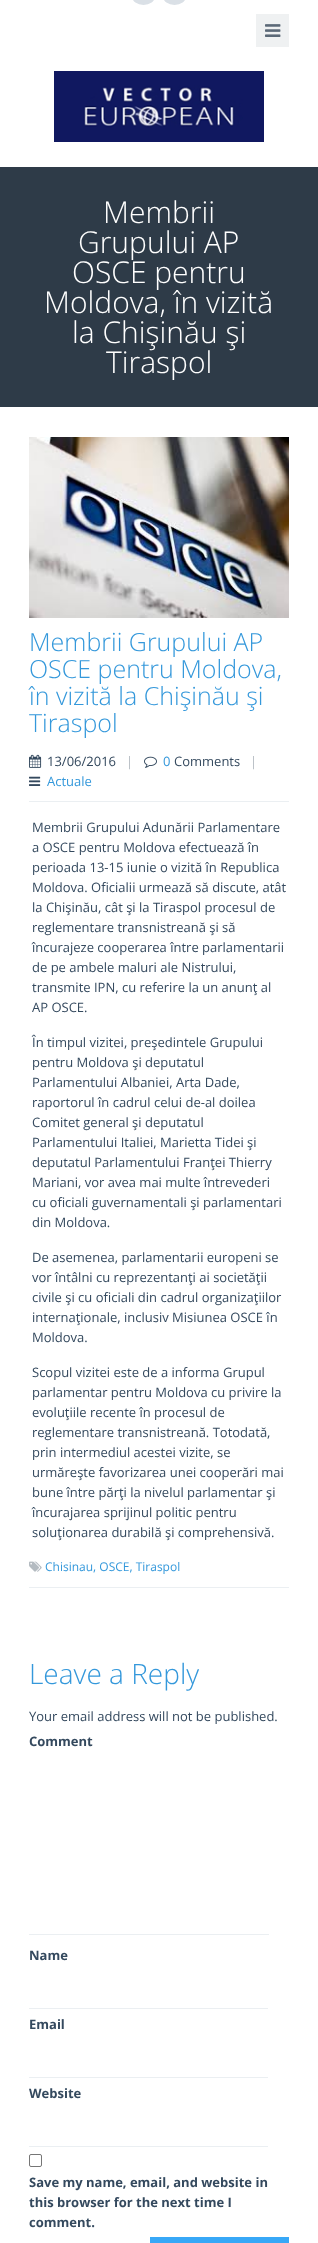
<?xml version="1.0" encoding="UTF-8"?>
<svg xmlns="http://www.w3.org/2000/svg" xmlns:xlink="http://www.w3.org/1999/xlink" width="318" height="2243">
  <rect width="100%" height="100%" fill="#ffffff" />
  <rect x="132" y="-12" width="23" height="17" rx="11.5" fill="#dae0e6" />
  <rect x="163" y="-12" width="23" height="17" rx="11.5" fill="#dae0e6" />
  <rect x="256" y="14" width="33" height="33" fill="#eff1f2" />
  <image x="265" y="24" width="16" height="13" xlink:href="image1.png" />
  <image x="54" y="71" width="210" height="71" xlink:href="image2.png" />
  <rect y="167" width="318" height="240" fill="#2e3b48" />
  <image x="29" y="437" width="260" height="181" xlink:href="image3.png" />
  <rect x="29" y="801" width="260" height="1" fill="#ebeff2" />
  <image x="29" y="754" width="13" height="14" xlink:href="image4.png" />
  <image x="144" y="756" width="13" height="12" xlink:href="image5.png" />
  <image x="29" y="776" width="12" height="10" xlink:href="image6.png" />
  <rect x="29" y="1587" width="260" height="1" fill="#ebeff2" />
  <image x="29" y="1561" width="13" height="11" xlink:href="image7.png" />
  <rect x="29" y="1934" width="240" height="1" fill="#ebeff2" />
  <rect x="29" y="2008" width="239" height="1" fill="#ebeff2" />
  <rect x="29" y="2077" width="239" height="1" fill="#ebeff2" />
  <rect x="29" y="2146" width="239" height="1" fill="#ebeff2" />
  <rect x="29.5" y="2154.5" width="12" height="12" rx="1.5" fill="none" stroke="#767676" />
  <rect x="150" y="2237" width="139" height="6" fill="#38a8f7" />
  <text x="103" y="223" style="font-family: Open Sans; font-size: 30px; font-weight: 300; fill: #ffffff">Membrii</text>
  <text x="78" y="253" style="font-family: Open Sans; font-size: 30px; font-weight: 300; fill: #ffffff">Grupului AP</text>
  <text x="72" y="283" style="font-family: Open Sans; font-size: 30px; font-weight: 300; fill: #ffffff">OSCE pentru</text>
  <text x="44" y="313" style="font-family: Open Sans; font-size: 30px; font-weight: 300; fill: #ffffff">Moldova, în vizită</text>
  <text x="72" y="343" style="font-family: Open Sans; font-size: 30px; font-weight: 300; fill: #ffffff">la Chişinău şi</text>
  <text x="106" y="373" style="font-family: Open Sans; font-size: 30px; font-weight: 300; fill: #ffffff">Tiraspol</text>
  <text x="29" y="651" style="font-family: Open Sans; font-size: 25px; font-weight: 300; fill: #3498db">Membrii Grupului AP</text>
  <text x="29" y="678" style="font-family: Open Sans; font-size: 25px; font-weight: 300; fill: #3498db">OSCE pentru Moldova,</text>
  <text x="29" y="705" style="font-family: Open Sans; font-size: 25px; font-weight: 300; fill: #3498db">în vizită la Chişinău şi</text>
  <text x="29" y="732" style="font-family: Open Sans; font-size: 25px; font-weight: 300; fill: #3498db">Tiraspol</text>
  <text x="47" y="766" style="font-family: Open Sans; font-size: 13px; fill: #34495e">13/06/2016</text>
  <text x="126" y="766" style="font-family: Open Sans; font-size: 13px; fill: #b4bbc1">|</text>
  <text x="163" y="766" style="font-family: Open Sans; font-size: 13px; fill: #3498db">0</text>
  <text x="174" y="766" style="font-family: Open Sans; font-size: 13px; fill: #34495e">Comments</text>
  <text x="250" y="766" style="font-family: Open Sans; font-size: 13px; fill: #b4bbc1">|</text>
  <text x="47" y="786" style="font-family: Open Sans; font-size: 13px; fill: #3498db">Actuale</text>
  <text x="32" y="832" style="font-family: Open Sans; font-size: 13px; fill: #34495e">Membrii Grupului Adunării Parlamentare</text>
  <text x="32" y="852" style="font-family: Open Sans; font-size: 13px; fill: #34495e">a OSCE pentru Moldova efectuează în</text>
  <text x="32" y="872" style="font-family: Open Sans; font-size: 13px; fill: #34495e">perioada 13-15 iunie o vizită în Republica</text>
  <text x="32" y="892" style="font-family: Open Sans; font-size: 13px; fill: #34495e">Moldova. Oficialii urmează să discute, atât</text>
  <text x="32" y="912" style="font-family: Open Sans; font-size: 13px; fill: #34495e">la Chişinău, cât şi la Tiraspol procesul de</text>
  <text x="32" y="932" style="font-family: Open Sans; font-size: 13px; fill: #34495e">reglementare transnistreană şi să</text>
  <text x="32" y="952" style="font-family: Open Sans; font-size: 13px; fill: #34495e">încurajeze cooperarea între parlamentarii</text>
  <text x="32" y="972" style="font-family: Open Sans; font-size: 13px; fill: #34495e">de pe ambele maluri ale Nistrului,</text>
  <text x="32" y="992" style="font-family: Open Sans; font-size: 13px; fill: #34495e">transmite IPN, cu referire la un anunţ al</text>
  <text x="32" y="1012" style="font-family: Open Sans; font-size: 13px; fill: #34495e">AP OSCE.</text>
  <text x="32" y="1047" style="font-family: Open Sans; font-size: 13px; fill: #34495e">În timpul vizitei, preşedintele Grupului</text>
  <text x="32" y="1067" style="font-family: Open Sans; font-size: 13px; fill: #34495e">pentru Moldova şi deputatul</text>
  <text x="32" y="1087" style="font-family: Open Sans; font-size: 13px; fill: #34495e">Parlamentului Albaniei, Arta Dade,</text>
  <text x="32" y="1107" style="font-family: Open Sans; font-size: 13px; fill: #34495e">raportorul în cadrul celui de-al doilea</text>
  <text x="32" y="1127" style="font-family: Open Sans; font-size: 13px; fill: #34495e">Comitet general şi deputatul</text>
  <text x="32" y="1147" style="font-family: Open Sans; font-size: 13px; fill: #34495e">Parlamentului Italiei, Marietta Tidei şi</text>
  <text x="32" y="1167" style="font-family: Open Sans; font-size: 13px; fill: #34495e">deputatul Parlamentului Franţei Thierry</text>
  <text x="32" y="1187" style="font-family: Open Sans; font-size: 13px; fill: #34495e">Mariani, vor avea mai multe întrevederi</text>
  <text x="32" y="1207" style="font-family: Open Sans; font-size: 13px; fill: #34495e">cu oficiali guvernamentali şi parlamentari</text>
  <text x="32" y="1227" style="font-family: Open Sans; font-size: 13px; fill: #34495e">din Moldova.</text>
  <text x="32" y="1262" style="font-family: Open Sans; font-size: 13px; fill: #34495e">De asemenea, parlamentarii europeni se</text>
  <text x="32" y="1282" style="font-family: Open Sans; font-size: 13px; fill: #34495e">vor întâlni cu reprezentanţi ai societăţii</text>
  <text x="32" y="1302" style="font-family: Open Sans; font-size: 13px; fill: #34495e">civile şi cu oficiali din cadrul organizaţiilor</text>
  <text x="32" y="1322" style="font-family: Open Sans; font-size: 13px; fill: #34495e">internaţionale, inclusiv Misiunea OSCE în</text>
  <text x="32" y="1342" style="font-family: Open Sans; font-size: 13px; fill: #34495e">Moldova.</text>
  <text x="32" y="1377" style="font-family: Open Sans; font-size: 13px; fill: #34495e">Scopul vizitei este de a informa Grupul</text>
  <text x="32" y="1397" style="font-family: Open Sans; font-size: 13px; fill: #34495e">parlamentar pentru Moldova cu privire la</text>
  <text x="32" y="1417" style="font-family: Open Sans; font-size: 13px; fill: #34495e">evoluţiile recente în procesul de</text>
  <text x="32" y="1437" style="font-family: Open Sans; font-size: 13px; fill: #34495e">reglementare transnistreană. Totodată,</text>
  <text x="32" y="1457" style="font-family: Open Sans; font-size: 13px; fill: #34495e">prin intermediul acestei vizite, se</text>
  <text x="32" y="1477" style="font-family: Open Sans; font-size: 13px; fill: #34495e">urmăreşte favorizarea unei cooperări mai</text>
  <text x="32" y="1497" style="font-family: Open Sans; font-size: 13px; fill: #34495e">bune între părţi la nivelul parlamentar şi</text>
  <text x="32" y="1517" style="font-family: Open Sans; font-size: 13px; fill: #34495e">încurajarea sprijinul politic pentru</text>
  <text x="32" y="1537" style="font-family: Open Sans; font-size: 13px; fill: #34495e">soluţionarea durabilă şi comprehensivă.</text>
  <text x="45" y="1571" style="font-family: Open Sans; font-size: 12px; fill: #3498db">Chisinau, OSCE, Tiraspol</text>
  <text x="29" y="1684" style="font-family: Open Sans; font-size: 28px; font-weight: 300; fill: #3498db">Leave a Reply</text>
  <text x="29" y="1721" style="font-family: Open Sans; font-size: 13px; fill: #34495e">Your email address will not be published.</text>
  <text x="29" y="1746" style="font-family: Open Sans; font-size: 13px; font-weight: bold; fill: #34495e">Comment</text>
  <text x="29" y="1960" style="font-family: Open Sans; font-size: 13px; font-weight: bold; fill: #34495e">Name</text>
  <text x="29" y="2029" style="font-family: Open Sans; font-size: 13px; font-weight: bold; fill: #34495e">Email</text>
  <text x="29" y="2098" style="font-family: Open Sans; font-size: 13px; font-weight: bold; fill: #34495e">Website</text>
  <text x="29" y="2187" style="font-family: Open Sans; font-size: 13px; font-weight: bold; fill: #34495e">Save my name, email, and website in</text>
  <text x="29" y="2207" style="font-family: Open Sans; font-size: 13px; font-weight: bold; fill: #34495e">this browser for the next time I</text>
  <text x="29" y="2227" style="font-family: Open Sans; font-size: 13px; font-weight: bold; fill: #34495e">comment.</text>
</svg>
